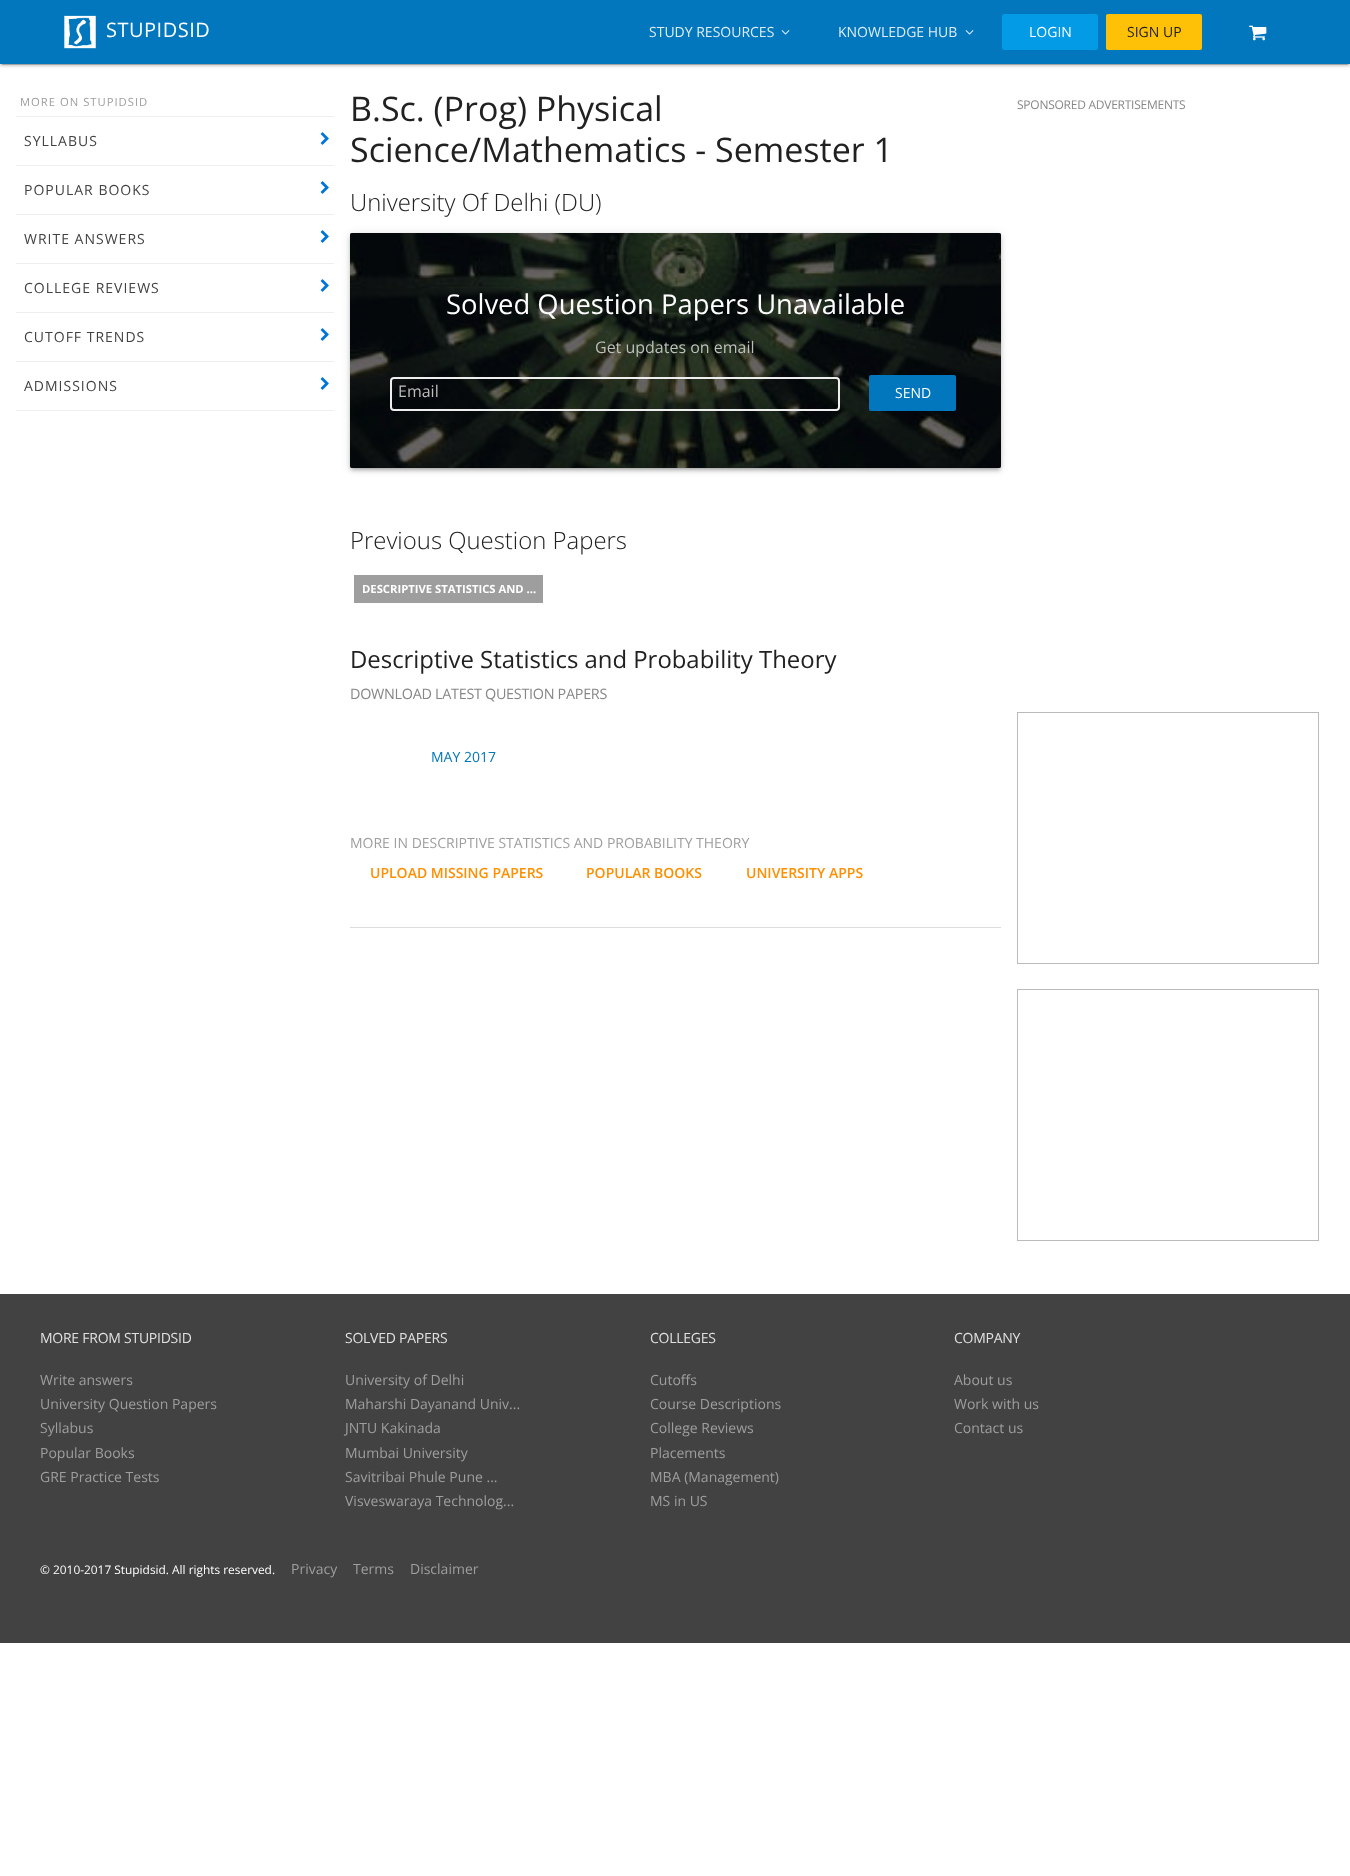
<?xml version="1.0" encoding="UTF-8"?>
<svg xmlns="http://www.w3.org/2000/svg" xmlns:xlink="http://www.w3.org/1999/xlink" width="1350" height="1876">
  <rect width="100%" height="100%" fill="#ffffff" />
  <rect y="1" width="1350" height="64" fill="#000000" fill-opacity="0.12" filter="blur(2.5px)" />
  <rect x="2" y="5" width="1346" height="60" fill="#000000" fill-opacity="0.2" filter="blur(0.5px)" />
  <rect y="2" width="1350" height="64" fill="#000000" fill-opacity="0.14" filter="blur(1px)" />
  <rect width="1350" height="64" fill="#0277bd" />
  <image x="64" y="15" width="32" height="34" xlink:href="image1.png" />
  <image x="781" y="30" width="9" height="5" xlink:href="image2.png" />
  <image x="965" y="30" width="9" height="5" xlink:href="image2.png" />
  <rect x="1002" y="14" width="96" height="36" rx="2" fill="#039be5" />
  <rect x="1106" y="14" width="96" height="36" rx="2" fill="#ffc107" />
  <image x="1249" y="25" width="18" height="16" xlink:href="image3.png" />
  <rect x="16" y="116" width="318" height="1" fill="#eeeeee" />
  <rect x="16" y="165" width="318" height="1" fill="#eeeeee" />
  <image x="320" y="132" width="9" height="13" xlink:href="image4.png" />
  <rect x="16" y="214" width="318" height="1" fill="#eeeeee" />
  <image x="320" y="181" width="9" height="13" xlink:href="image4.png" />
  <rect x="16" y="263" width="318" height="1" fill="#eeeeee" />
  <image x="320" y="230" width="9" height="13" xlink:href="image4.png" />
  <rect x="16" y="312" width="318" height="1" fill="#eeeeee" />
  <image x="320" y="279" width="9" height="13" xlink:href="image4.png" />
  <rect x="16" y="361" width="318" height="1" fill="#eeeeee" />
  <image x="320" y="328" width="9" height="13" xlink:href="image4.png" />
  <rect x="16" y="410" width="318" height="1" fill="#eeeeee" />
  <image x="320" y="377" width="9" height="13" xlink:href="image4.png" />
  <rect x="350" y="234" width="651" height="235" rx="2" fill="#000000" fill-opacity="0.12" filter="blur(4px)" />
  <rect x="352" y="238" width="647" height="231" fill="#000000" fill-opacity="0.2" filter="blur(1.5px)" />
  <rect x="350" y="236" width="651" height="235" rx="2" fill="#000000" fill-opacity="0.14" filter="blur(2px)" />
  <image x="350" y="233" width="651" height="235" xlink:href="image5.png" />
  <rect x="350" y="233" width="651" height="235" rx="2" fill="#000000" fill-opacity="0.6" />
  <rect x="391" y="378" width="448" height="32" rx="3" fill="none" stroke="#eeeeee" stroke-width="2" />
  <rect x="869" y="375" width="87" height="36" rx="2" fill="#0277bd" />
  <rect x="354" y="575" width="189" height="28" fill="#9e9e9e" />
  <rect x="350" y="927" width="651" height="1" fill="#dddddd" />
  <rect x="1017.5" y="712.5" width="301" height="251" fill="none" stroke="#bbbbbb" />
  <rect x="1017.5" y="989.5" width="301" height="251" fill="none" stroke="#bbbbbb" />
  <rect y="1294" width="1350" height="349" fill="#424242" />
  <text x="106" y="37" style="font-family: Open Sans; font-size: 20px; letter-spacing: 0.5px; fill: #ffffff">STUPIDSID</text>
  <text x="649" y="37" style="font-family: Open Sans; font-size: 14px; fill: #deedf6">STUDY RESOURCES</text>
  <text x="838" y="37" style="font-family: Open Sans; font-size: 14px; fill: #deedf6">KNOWLEDGE HUB</text>
  <text x="1029" y="37" style="font-family: Open Sans; font-size: 14px; fill: #ffffff">LOGIN</text>
  <text x="1127" y="37" style="font-family: Open Sans; font-size: 14px; fill: #212121">SIGN UP</text>
  <text x="20" y="106" style="font-family: Open Sans; font-size: 11.25px; letter-spacing: 1px; fill: #9e9e9e">MORE ON STUPIDSID</text>
  <text x="24" y="146" style="font-family: Open Sans; font-size: 14px; letter-spacing: 1px; fill: #424242">SYLLABUS</text>
  <text x="24" y="195" style="font-family: Open Sans; font-size: 14px; letter-spacing: 1px; fill: #424242">POPULAR BOOKS</text>
  <text x="24" y="244" style="font-family: Open Sans; font-size: 14px; letter-spacing: 1px; fill: #424242">WRITE ANSWERS</text>
  <text x="24" y="293" style="font-family: Open Sans; font-size: 14px; letter-spacing: 1px; fill: #424242">COLLEGE REVIEWS</text>
  <text x="24" y="342" style="font-family: Open Sans; font-size: 14px; letter-spacing: 1px; fill: #424242">CUTOFF TRENDS</text>
  <text x="24" y="391" style="font-family: Open Sans; font-size: 14px; letter-spacing: 1px; fill: #424242">ADMISSIONS</text>
  <text x="350" y="121" style="font-family: Open Sans; font-size: 34px; fill: #212121">B.Sc. (Prog) Physical</text>
  <text x="350" y="162" style="font-family: Open Sans; font-size: 34px; fill: #212121">Science/Mathematics - Semester 1</text>
  <text x="350" y="211" style="font-family: Open Sans; font-size: 23.9px; font-weight: 300; fill: #212121">University Of Delhi (DU)</text>
  <text x="446" y="314" style="font-family: Open Sans; font-size: 27.4px; fill: #ffffff">Solved Question Papers Unavailable</text>
  <text x="595" y="353" style="font-family: Open Sans; font-size: 16px; fill: #bdbfbb">Get updates on email</text>
  <text x="398" y="397" style="font-family: Open Sans; font-size: 16px; fill: #bdbfbb">Email</text>
  <text x="895" y="398" style="font-family: Open Sans; font-size: 14px; fill: #ffffff">SEND</text>
  <text x="350" y="549" style="font-family: Open Sans; font-size: 23.9px; font-weight: 300; fill: #212121">Previous Question Papers</text>
  <text x="362" y="593" style="font-family: Open Sans; font-size: 11.25px; font-weight: bold; fill: #ffffff">DESCRIPTIVE STATISTICS AND ...</text>
  <text x="350" y="668" style="font-family: Open Sans; font-size: 23.9px; fill: #212121">Descriptive Statistics and Probability Theory</text>
  <text x="350" y="699" style="font-family: Open Sans; font-size: 14.4px; letter-spacing: -0.3px; fill: #878787">DOWNLOAD LATEST QUESTION PAPERS</text>
  <text x="431" y="762" style="font-family: Open Sans; font-size: 14px; fill: #0277bd">MAY 2017</text>
  <text x="350" y="848" style="font-family: Open Sans; font-size: 14px; fill: #9e9e9e">MORE IN DESCRIPTIVE STATISTICS AND PROBABILITY THEORY</text>
  <text x="370" y="878" style="font-family: Open Sans; font-size: 14px; font-weight: 600; fill: #ff8f00">UPLOAD MISSING PAPERS</text>
  <text x="586" y="878" style="font-family: Open Sans; font-size: 14px; font-weight: 600; fill: #ff8f00">POPULAR BOOKS</text>
  <text x="746" y="878" style="font-family: Open Sans; font-size: 14px; font-weight: 600; fill: #ff8f00">UNIVERSITY APPS</text>
  <text x="1017" y="109" style="font-family: Open Sans; font-size: 12px; letter-spacing: -0.25px; fill: #878787">SPONSORED ADVERTISEMENTS</text>
  <text x="40" y="1343" style="font-family: Open Sans; font-size: 14px; letter-spacing: -0.25px; fill: #e0e0e0">MORE FROM STUPIDSID</text>
  <text x="40" y="1385" style="font-family: Open Sans; font-size: 14px; fill: #9e9e9e">Write answers</text>
  <text x="40" y="1409" style="font-family: Open Sans; font-size: 14px; fill: #9e9e9e">University Question Papers</text>
  <text x="40" y="1433" style="font-family: Open Sans; font-size: 14px; fill: #9e9e9e">Syllabus</text>
  <text x="40" y="1458" style="font-family: Open Sans; font-size: 14px; fill: #9e9e9e">Popular Books</text>
  <text x="40" y="1482" style="font-family: Open Sans; font-size: 14px; fill: #9e9e9e">GRE Practice Tests</text>
  <text x="345" y="1343" style="font-family: Open Sans; font-size: 14px; letter-spacing: -0.25px; fill: #e0e0e0">SOLVED PAPERS</text>
  <text x="345" y="1385" style="font-family: Open Sans; font-size: 14px; fill: #9e9e9e">University of Delhi</text>
  <text x="345" y="1409" style="font-family: Open Sans; font-size: 14px; fill: #9e9e9e">Maharshi Dayanand Univ...</text>
  <text x="345" y="1433" style="font-family: Open Sans; font-size: 14px; fill: #9e9e9e">JNTU Kakinada</text>
  <text x="345" y="1458" style="font-family: Open Sans; font-size: 14px; fill: #9e9e9e">Mumbai University</text>
  <text x="345" y="1482" style="font-family: Open Sans; font-size: 14px; fill: #9e9e9e">Savitribai Phule Pune ...</text>
  <text x="345" y="1506" style="font-family: Open Sans; font-size: 14px; fill: #9e9e9e">Visveswaraya Technolog...</text>
  <text x="650" y="1343" style="font-family: Open Sans; font-size: 14px; letter-spacing: -0.25px; fill: #e0e0e0">COLLEGES</text>
  <text x="650" y="1385" style="font-family: Open Sans; font-size: 14px; fill: #9e9e9e">Cutoffs</text>
  <text x="650" y="1409" style="font-family: Open Sans; font-size: 14px; fill: #9e9e9e">Course Descriptions</text>
  <text x="650" y="1433" style="font-family: Open Sans; font-size: 14px; fill: #9e9e9e">College Reviews</text>
  <text x="650" y="1458" style="font-family: Open Sans; font-size: 14px; fill: #9e9e9e">Placements</text>
  <text x="650" y="1482" style="font-family: Open Sans; font-size: 14px; fill: #9e9e9e">MBA (Management)</text>
  <text x="650" y="1506" style="font-family: Open Sans; font-size: 14px; fill: #9e9e9e">MS in US</text>
  <text x="954" y="1343" style="font-family: Open Sans; font-size: 14px; letter-spacing: -0.25px; fill: #e0e0e0">COMPANY</text>
  <text x="954" y="1385" style="font-family: Open Sans; font-size: 14px; fill: #9e9e9e">About us</text>
  <text x="954" y="1409" style="font-family: Open Sans; font-size: 14px; fill: #9e9e9e">Work with us</text>
  <text x="954" y="1433" style="font-family: Open Sans; font-size: 14px; fill: #9e9e9e">Contact us</text>
  <text x="40" y="1574" style="font-family: Open Sans; font-size: 11.9px; fill: #ffffff">© 2010-2017 Stupidsid. All rights reserved.</text>
  <text x="291" y="1574" style="font-family: Open Sans; font-size: 14px; fill: #9e9e9e">Privacy</text>
  <text x="353" y="1574" style="font-family: Open Sans; font-size: 14px; fill: #9e9e9e">Terms</text>
  <text x="410" y="1574" style="font-family: Open Sans; font-size: 14px; fill: #9e9e9e">Disclaimer</text>
</svg>
